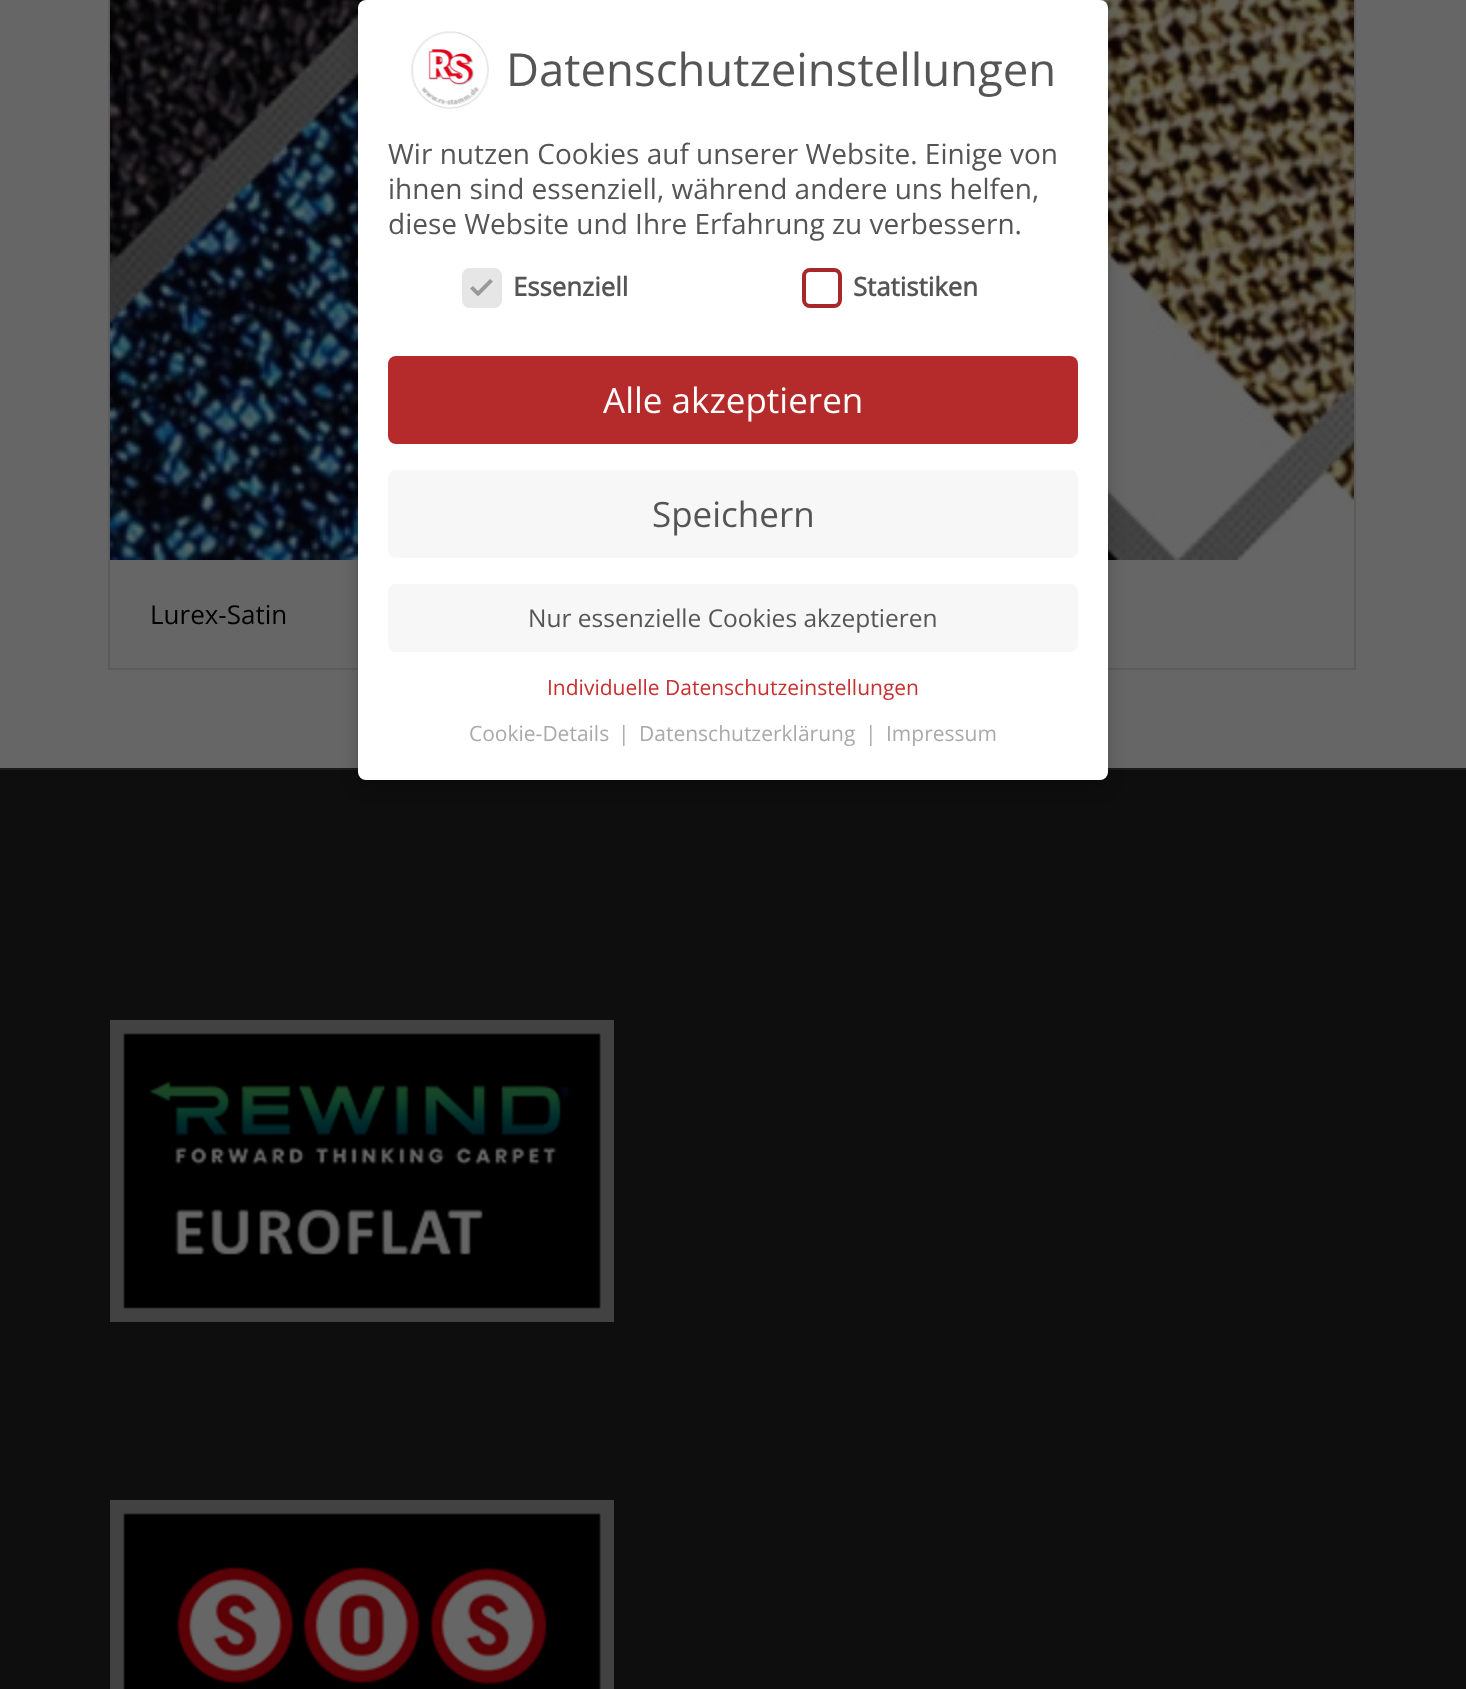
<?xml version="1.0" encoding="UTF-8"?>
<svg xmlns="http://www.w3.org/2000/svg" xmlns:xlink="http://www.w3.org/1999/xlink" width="1466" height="1689">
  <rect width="100%" height="100%" fill="#666666" />
  <rect x="109" y="-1" width="1246" height="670" fill="none" stroke="#5c5c5c" stroke-width="2" />
  <image x="110" y="0" width="1244" height="560" xlink:href="image1.png" />
  <rect y="770" width="1466" height="919" fill="#0e0e0e" />
  <rect y="768" width="1466" height="2" fill="#1b1b1b" />
  <image x="110" y="1020" width="504" height="302" xlink:href="image2.png" />
  <image x="110" y="1500" width="504" height="189" xlink:href="image3.png" />
  <rect x="358" y="8" width="750" height="780" rx="8" fill="#000000" fill-opacity="0.2" filter="blur(8px)" />
  <rect x="358" width="750" height="780" rx="8" fill="#ffffff" />
  <image x="411" y="31" width="78" height="78" xlink:href="image4.png" />
  <rect x="464" y="270" width="36" height="36" rx="6" fill="#e6e6e6" stroke="#e6e6e6" stroke-width="4" />
  <path d="M 490 279 l 3 2.5 l -14.5 14.5 l -2.5 -3 z" fill="#999999" />
  <path d="M 473 286 l 7 7 l -2.5 3 l -7.5 -7.5 z" fill="#999999" />
  <rect x="804" y="270" width="36" height="36" rx="6" fill="none" stroke="#a72828" stroke-width="4" />
  <rect x="388" y="356" width="690" height="88" rx="8" fill="#b52b2b" />
  <rect x="388" y="470" width="690" height="88" rx="8" fill="#f7f7f7" />
  <rect x="388" y="584" width="690" height="68" rx="8" fill="#f7f7f7" />
  <text x="150" y="624" style="font-family: Open Sans; font-size: 26px; fill: #000000">Lurex-Satin</text>
  <text x="506" y="86" style="font-family: Open Sans; font-size: 45.5px; fill: #555555">Datenschutzeinstellungen</text>
  <text x="388" y="164" style="font-family: Open Sans; font-size: 28px; fill: #555555">Wir nutzen Cookies auf unserer Website. Einige von</text>
  <text x="388" y="199" style="font-family: Open Sans; font-size: 28px; fill: #555555">ihnen sind essenziell, während andere uns helfen,</text>
  <text x="388" y="234" style="font-family: Open Sans; font-size: 28px; fill: #555555">diese Website und Ihre Erfahrung zu verbessern.</text>
  <text x="513" y="296" style="font-family: Open Sans; font-size: 25.75px; font-weight: bold; fill: #555555">Essenziell</text>
  <text x="853" y="296" style="font-family: Open Sans; font-size: 25.75px; font-weight: bold; fill: #555555">Statistiken</text>
  <text x="603" y="413" style="font-family: Open Sans; font-size: 35px; fill: #ffffff">Alle akzeptieren</text>
  <text x="652" y="527" style="font-family: Open Sans; font-size: 35px; fill: #555555">Speichern</text>
  <text x="528" y="627" style="font-family: Open Sans; font-size: 24.5px; fill: #555555">Nur essenzielle Cookies akzeptieren</text>
  <text x="547" y="695" style="font-family: Open Sans; font-size: 21px; fill: #c93030">Individuelle Datenschutzeinstellungen</text>
  <text x="469" y="741" style="font-family: Open Sans; font-size: 21px; fill: #aaaaaa">Cookie-Details</text>
  <text x="618" y="741" style="font-family: Open Sans; font-size: 21px; fill: #aaaaaa">|</text>
  <text x="639" y="741" style="font-family: Open Sans; font-size: 21px; fill: #aaaaaa">Datenschutzerklärung</text>
  <text x="865" y="741" style="font-family: Open Sans; font-size: 21px; fill: #aaaaaa">|</text>
  <text x="886" y="741" style="font-family: Open Sans; font-size: 21px; fill: #aaaaaa">Impressum</text>
</svg>
